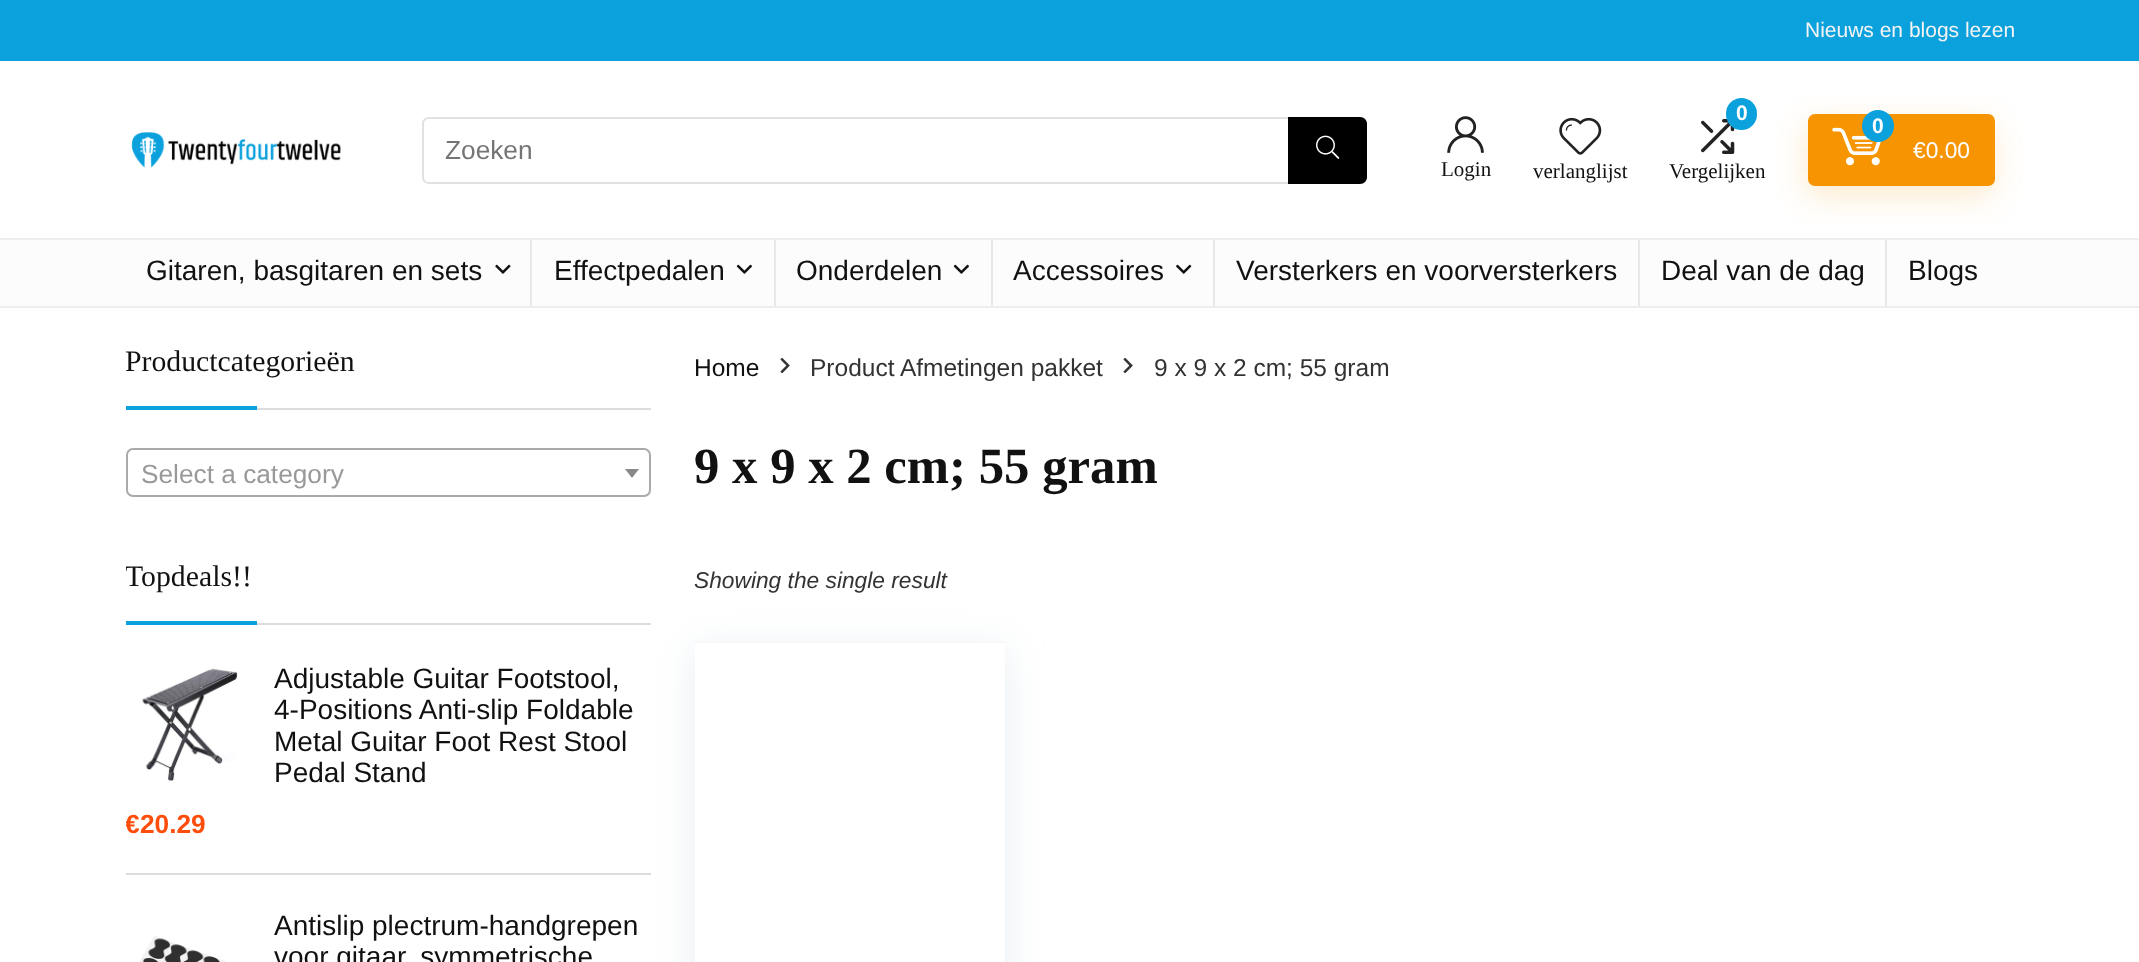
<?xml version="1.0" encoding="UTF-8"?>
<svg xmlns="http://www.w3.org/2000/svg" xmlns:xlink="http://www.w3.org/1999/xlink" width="2139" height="962">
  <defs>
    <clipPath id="clip1"><rect x="126" y="558" width="525" height="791" /></clipPath>
  </defs>
  <rect width="100%" height="100%" fill="#ffffff" />
  <rect width="2139" height="61" fill="#0ba1dd" />
  <image x="131" y="132" width="210" height="36" xlink:href="image1.png" />
  <path d="M 429 117 h 859 v 67 h -859 c -4 0 -7 -3 -7 -7 v -53 c 0 -4 3 -7 7 -7 z m 0 2 h 859 v 63 h -859 c -3 0 -5 -2 -5 -5 v -53 c 0 -3 2 -5 5 -5 z" fill="#e1e1e1" fill-rule="evenodd" />
  <path d="M 1288 117 h 72 c 4 0 7 3 7 7 v 53 c 0 4 -3 7 -7 7 h -72 z" fill="#000000" />
  <image x="1316" y="135" width="24" height="24" xlink:href="image2.png" />
  <image x="1701" y="119" width="34" height="35" xlink:href="image3.png" />
  <rect y="240" width="2139" height="66" fill="#fcfcfc" />
  <rect y="238" width="2139" height="2" fill="#eeeeee" />
  <rect x="1806" y="124" width="187" height="72" rx="7" fill="#f79401" fill-opacity="0.2" filter="blur(16.5px)" />
  <rect x="1726" y="98" width="31" height="32" rx="15.5" fill="#0ba1dd" />
  <rect x="1808" y="114" width="187" height="72" rx="7" fill="#f79401" />
  <image x="1832" y="127" width="49" height="39" xlink:href="image4.png" />
  <circle cx="1878" cy="126" r="16" fill="#0ba1dd" />
  <image x="1447" y="116" width="37" height="37" xlink:href="image5.png" />
  <image x="1559" y="117" width="43" height="38" xlink:href="image6.png" />
  <rect y="306" width="2139" height="2" fill="#eeeeee" />
  <rect x="530" y="240" width="2" height="66" fill="#e8e8e8" />
  <image x="495" y="264" width="16" height="10" xlink:href="image7.png" />
  <rect x="774" y="240" width="2" height="66" fill="#e8e8e8" />
  <image x="736" y="264" width="16" height="10" xlink:href="image8.png" />
  <rect x="991" y="240" width="2" height="66" fill="#e8e8e8" />
  <image x="953" y="264" width="16" height="10" xlink:href="image8.png" />
  <rect x="1213" y="240" width="2" height="66" fill="#e8e8e8" />
  <image x="1176" y="264" width="16" height="10" xlink:href="image9.png" />
  <rect x="1638" y="240" width="2" height="66" fill="#e8e8e8" />
  <rect x="1885" y="240" width="2" height="66" fill="#e8e8e8" />
  <rect x="257" y="408" width="394" height="2" fill="#dddddd" />
  <rect x="126" y="406" width="131" height="4" fill="#0ba1dd" />
  <rect x="127" y="449" width="523" height="47" rx="6" fill="none" stroke="#aaaaaa" stroke-width="2" />
  <path d="M 625 469 h 14 l -7 9 z" fill="#888888" />
  <rect x="257" y="623" width="394" height="2" fill="#dddddd" />
  <rect x="126" y="621" width="131" height="4" fill="#0ba1dd" />
  <rect x="126" y="873" width="525" height="2" fill="#dddddd" />
  <image x="142" y="668" width="96" height="118" xlink:href="image10.png" />
  <image x="139" y="936" width="87" height="26" xlink:href="image11.png" />
  <image x="780" y="357" width="10" height="17" xlink:href="image12.png" />
  <image x="1123" y="357" width="10" height="17" xlink:href="image12.png" />
  <rect x="695" y="649" width="310" height="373" fill="#bccfdb" fill-opacity="0.35" filter="blur(20px)" />
  <rect x="695" y="643" width="310" height="319" fill="#ffffff" />
  <rect x="695" y="641" width="310" height="2" fill="#f8f8f8" />
  <text x="1805" y="37" style="font-family: Liberation Sans; font-size: 21px; fill: #f4f4f4">Nieuws en blogs lezen</text>
  <text x="445" y="159" style="font-family: Liberation Sans; font-size: 26.25px; fill: #757575">Zoeken</text>
  <text x="1736" y="120" style="font-family: Liberation Sans; font-size: 21px; font-weight: bold; fill: #ffffff">0</text>
  <text x="1669" y="178" style="font-family: Liberation Serif; font-size: 21px; fill: #111111">Vergelijken</text>
  <text x="1872" y="133" style="font-family: Liberation Sans; font-size: 21px; font-weight: bold; fill: #ffffff">0</text>
  <text x="1913" y="158" style="font-family: Liberation Sans; font-size: 22.75px; fill: #ffffff">€0.00</text>
  <text x="1441" y="176" style="font-family: Liberation Serif; font-size: 21px; fill: #111111">Login</text>
  <text x="1533" y="178" style="font-family: Liberation Serif; font-size: 21px; fill: #111111">verlanglijst</text>
  <text x="146" y="280" style="font-family: Liberation Sans; font-size: 28px; fill: #111111">Gitaren, basgitaren en sets</text>
  <text x="554" y="280" style="font-family: Liberation Sans; font-size: 28px; fill: #111111">Effectpedalen</text>
  <text x="796" y="280" style="font-family: Liberation Sans; font-size: 28px; fill: #111111">Onderdelen</text>
  <text x="1013" y="280" style="font-family: Liberation Sans; font-size: 28px; fill: #111111">Accessoires</text>
  <text x="1236" y="280" style="font-family: Liberation Sans; font-size: 28px; fill: #111111">Versterkers en voorversterkers</text>
  <text x="1661" y="280" style="font-family: Liberation Sans; font-size: 28px; fill: #111111">Deal van de dag</text>
  <text x="1908" y="280" style="font-family: Liberation Sans; font-size: 28px; fill: #111111">Blogs</text>
  <text x="125" y="371" style="font-family: Liberation Serif; font-size: 29.75px; fill: #111111">Productcategorieën</text>
  <text x="141" y="483" style="font-family: Liberation Sans; font-size: 26.25px; fill: #999999">Select a category</text>
  <g clip-path="url(#clip1)">
    <text x="125" y="586" style="font-family: Liberation Serif; font-size: 29.75px; fill: #111111">Topdeals!!</text>
  </g>
  <text x="274" y="688" style="font-family: Liberation Sans; font-size: 28px; fill: #111111">Adjustable Guitar Footstool,</text>
  <text x="274" y="719" style="font-family: Liberation Sans; font-size: 28px; fill: #111111">4-Positions Anti-slip Foldable</text>
  <text x="274" y="751" style="font-family: Liberation Sans; font-size: 28px; fill: #111111">Metal Guitar Foot Rest Stool</text>
  <text x="274" y="782" style="font-family: Liberation Sans; font-size: 28px; fill: #111111">Pedal Stand</text>
  <g clip-path="url(#clip1)">
    <text x="125" y="833" style="font-family: Liberation Sans; font-size: 26.25px; font-weight: bold; fill: #ff4e0c">€</text>
  </g>
  <text x="140" y="833" style="font-family: Liberation Sans; font-size: 26.25px; font-weight: bold; fill: #ff4e0c">20.29</text>
  <text x="274" y="935" style="font-family: Liberation Sans; font-size: 28px; fill: #111111">Antislip plectrum-handgrepen</text>
  <text x="274" y="966" style="font-family: Liberation Sans; font-size: 28px; fill: #111111">voor gitaar, symmetrische</text>
  <text x="694" y="376" style="font-family: Liberation Sans; font-size: 24.5px; fill: #111111">Home</text>
  <text x="810" y="376" style="font-family: Liberation Sans; font-size: 24.5px; fill: #333333">Product Afmetingen pakket</text>
  <text x="1154" y="376" style="font-family: Liberation Sans; font-size: 24.5px; fill: #333333">9 x 9 x 2 cm; 55 gram</text>
  <text x="694" y="483" style="font-family: Liberation Serif; font-size: 50.75px; font-weight: bold; fill: #111111">9 x 9 x 2 cm; 55 gram</text>
  <text x="694" y="588" style="font-family: Liberation Sans; font-size: 22.75px; font-style: italic; fill: #333333">Showing the single result</text>
</svg>
